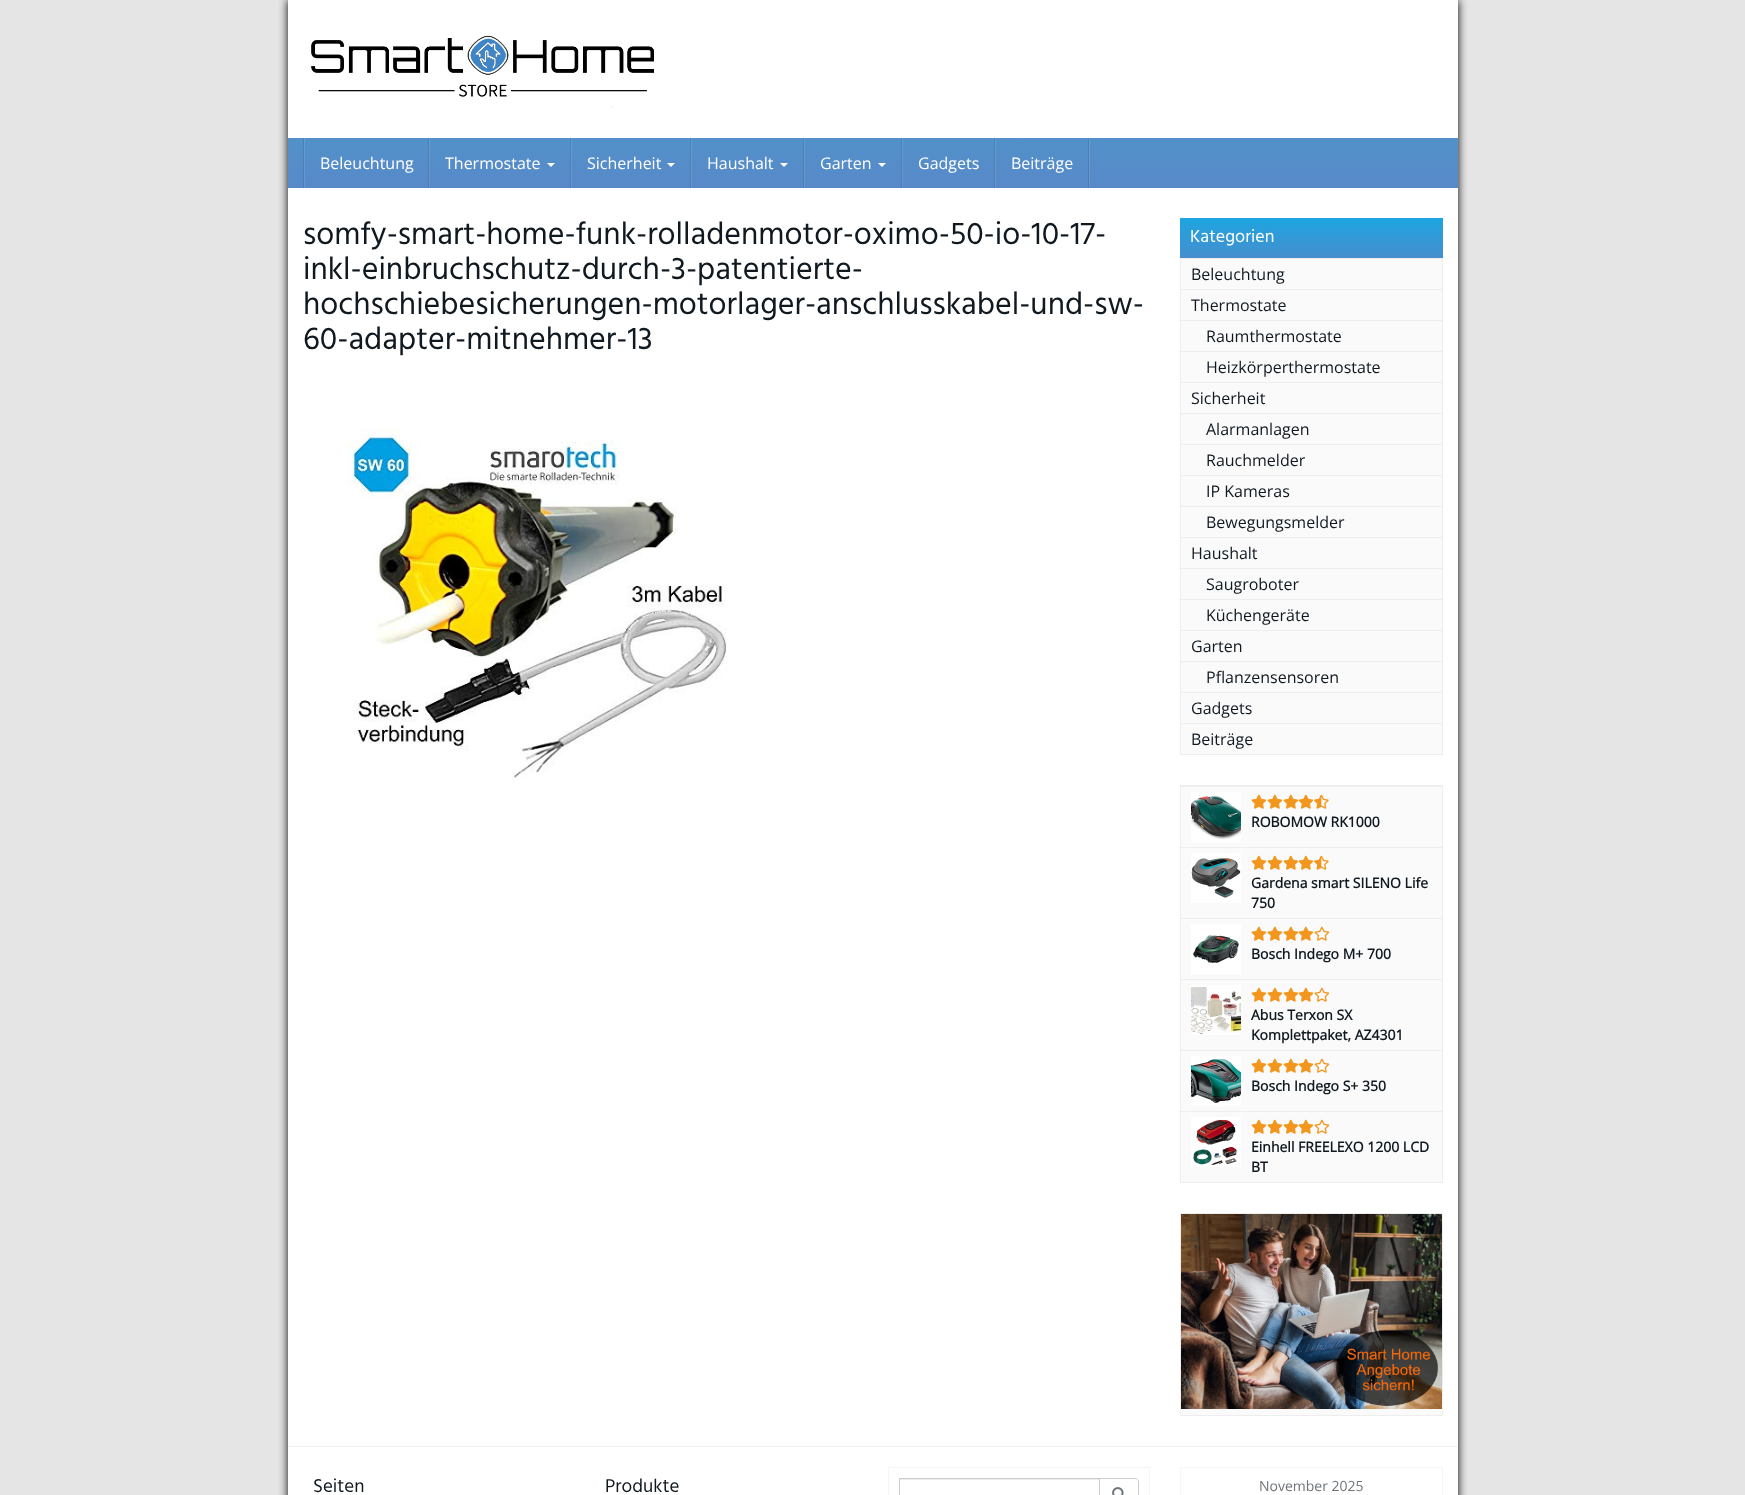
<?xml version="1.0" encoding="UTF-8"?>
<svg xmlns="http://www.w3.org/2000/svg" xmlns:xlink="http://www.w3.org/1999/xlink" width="1745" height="1495">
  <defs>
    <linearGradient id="g1" gradientUnits="userSpaceOnUse" x1="873" y1="138" x2="873" y2="188"><stop offset="0" stop-color="#5291c9" /><stop offset="1" stop-color="#5889c9" /></linearGradient>
    <linearGradient id="g2" gradientUnits="userSpaceOnUse" x1="873" y1="138" x2="873" y2="188"><stop offset="0" stop-color="#639cce" /><stop offset="1" stop-color="#6995ce" /></linearGradient>
    <linearGradient id="g3" gradientUnits="userSpaceOnUse" x1="873" y1="138" x2="873" y2="188"><stop offset="0" stop-color="#4a83b5" /><stop offset="1" stop-color="#4f7bb5" /></linearGradient>
    <linearGradient id="g4" gradientUnits="userSpaceOnUse" x1="1312" y1="218" x2="1312" y2="258"><stop offset="0" stop-color="#1da5e0" /><stop offset="1" stop-color="#468ece" /></linearGradient>
  </defs>
  <rect width="100%" height="100%" fill="#e5e5e5" />
  <rect x="288" width="1170" height="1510" fill="#000000" filter="blur(5px)" />
  <rect x="288" width="1170" height="1495" fill="#ffffff" />
  <image x="311" y="35" width="343" height="73" xlink:href="image1.png" />
  <rect x="288" y="138" width="1170" height="50" fill="url(#g1)" />
  <rect x="995" y="138" width="1" height="50" fill="url(#g2)" />
  <rect x="1088" y="138" width="1" height="50" fill="url(#g3)" />
  <rect x="902" y="138" width="1" height="50" fill="url(#g2)" />
  <rect x="994" y="138" width="1" height="50" fill="url(#g3)" />
  <rect x="804" y="138" width="1" height="50" fill="url(#g2)" />
  <rect x="901" y="138" width="1" height="50" fill="url(#g3)" />
  <rect x="691" y="138" width="1" height="50" fill="url(#g2)" />
  <rect x="803" y="138" width="1" height="50" fill="url(#g3)" />
  <rect x="571" y="138" width="1" height="50" fill="url(#g2)" />
  <rect x="690" y="138" width="1" height="50" fill="url(#g3)" />
  <rect x="429" y="138" width="1" height="50" fill="url(#g2)" />
  <rect x="570" y="138" width="1" height="50" fill="url(#g3)" />
  <rect x="304" y="138" width="1" height="50" fill="url(#g2)" />
  <rect x="428" y="138" width="1" height="50" fill="url(#g3)" />
  <rect x="303" y="138" width="1" height="50" fill="url(#g3)" />
  <rect x="1089" y="138" width="1" height="50" fill="url(#g2)" />
  <path d="M 547 163 h 8 l -4 4 z" fill="#ffffff" />
  <path d="M 667 163 h 8 l -4 4 z" fill="#ffffff" />
  <path d="M 780 163 h 8 l -4 4 z" fill="#ffffff" />
  <path d="M 878 163 h 8 l -4 4 z" fill="#ffffff" />
  <image x="346" y="427" width="382" height="352" xlink:href="image2.png" />
  <rect x="1181" y="259" width="261" height="495" fill="#fafafa" />
  <rect x="1180.5" y="218.5" width="262" height="536" fill="none" stroke="#eeeeee" />
  <rect x="1180" y="218" width="263" height="40" fill="url(#g4)" />
  <rect x="1181" y="258" width="261" height="1" fill="#eeeeee" />
  <rect x="1181" y="289" width="261" height="1" fill="#eeeeee" />
  <rect x="1181" y="320" width="261" height="1" fill="#eeeeee" />
  <rect x="1181" y="351" width="261" height="1" fill="#eeeeee" />
  <rect x="1181" y="382" width="261" height="1" fill="#eeeeee" />
  <rect x="1181" y="413" width="261" height="1" fill="#eeeeee" />
  <rect x="1181" y="444" width="261" height="1" fill="#eeeeee" />
  <rect x="1181" y="475" width="261" height="1" fill="#eeeeee" />
  <rect x="1181" y="506" width="261" height="1" fill="#eeeeee" />
  <rect x="1181" y="537" width="261" height="1" fill="#eeeeee" />
  <rect x="1181" y="568" width="261" height="1" fill="#eeeeee" />
  <rect x="1181" y="599" width="261" height="1" fill="#eeeeee" />
  <rect x="1181" y="630" width="261" height="1" fill="#eeeeee" />
  <rect x="1181" y="661" width="261" height="1" fill="#eeeeee" />
  <rect x="1181" y="692" width="261" height="1" fill="#eeeeee" />
  <rect x="1181" y="723" width="261" height="1" fill="#eeeeee" />
  <rect x="1181" y="787" width="261" height="395" fill="#fafafa" />
  <rect x="1180.5" y="785.5" width="262" height="397" fill="none" stroke="#eeeeee" />
  <rect x="1181" y="786" width="261" height="1" fill="#eeeeee" />
  <image x="1191" y="792" width="50" height="50" xlink:href="image3.png" />
  <image x="1251" y="794" width="16" height="15" xlink:href="image4.png" />
  <image x="1267" y="794" width="16" height="15" xlink:href="image4.png" />
  <image x="1283" y="794" width="16" height="15" xlink:href="image4.png" />
  <image x="1298" y="794" width="16" height="15" xlink:href="image5.png" />
  <image x="1314" y="794" width="15" height="15" xlink:href="image6.png" />
  <rect x="1181" y="847" width="261" height="1" fill="#eeeeee" />
  <image x="1191" y="853" width="50" height="50" xlink:href="image7.png" />
  <image x="1251" y="855" width="16" height="15" xlink:href="image4.png" />
  <image x="1267" y="855" width="16" height="15" xlink:href="image4.png" />
  <image x="1283" y="855" width="16" height="15" xlink:href="image4.png" />
  <image x="1298" y="855" width="16" height="15" xlink:href="image5.png" />
  <image x="1314" y="855" width="15" height="15" xlink:href="image6.png" />
  <rect x="1181" y="918" width="261" height="1" fill="#eeeeee" />
  <image x="1191" y="924" width="50" height="50" xlink:href="image8.png" />
  <image x="1251" y="926" width="16" height="15" xlink:href="image4.png" />
  <image x="1267" y="926" width="16" height="15" xlink:href="image4.png" />
  <image x="1283" y="926" width="16" height="15" xlink:href="image4.png" />
  <image x="1298" y="926" width="16" height="15" xlink:href="image5.png" />
  <image x="1314" y="926" width="16" height="15" xlink:href="image9.png" />
  <rect x="1181" y="979" width="261" height="1" fill="#eeeeee" />
  <image x="1191" y="985" width="50" height="50" xlink:href="image10.png" />
  <image x="1251" y="987" width="16" height="15" xlink:href="image4.png" />
  <image x="1267" y="987" width="16" height="15" xlink:href="image4.png" />
  <image x="1283" y="987" width="16" height="15" xlink:href="image4.png" />
  <image x="1298" y="987" width="16" height="15" xlink:href="image5.png" />
  <image x="1314" y="987" width="16" height="15" xlink:href="image9.png" />
  <rect x="1181" y="1050" width="261" height="1" fill="#eeeeee" />
  <image x="1191" y="1056" width="50" height="50" xlink:href="image11.png" />
  <image x="1251" y="1058" width="16" height="15" xlink:href="image4.png" />
  <image x="1267" y="1058" width="16" height="15" xlink:href="image4.png" />
  <image x="1283" y="1058" width="16" height="15" xlink:href="image4.png" />
  <image x="1298" y="1058" width="16" height="15" xlink:href="image5.png" />
  <image x="1314" y="1058" width="16" height="15" xlink:href="image9.png" />
  <rect x="1181" y="1111" width="261" height="1" fill="#eeeeee" />
  <image x="1191" y="1117" width="50" height="50" xlink:href="image12.png" />
  <image x="1251" y="1119" width="16" height="15" xlink:href="image4.png" />
  <image x="1267" y="1119" width="16" height="15" xlink:href="image4.png" />
  <image x="1283" y="1119" width="16" height="15" xlink:href="image4.png" />
  <image x="1298" y="1119" width="16" height="15" xlink:href="image5.png" />
  <image x="1314" y="1119" width="16" height="15" xlink:href="image9.png" />
  <rect x="1181" y="1409" width="261" height="6" fill="#fafafa" />
  <rect x="1180.5" y="1213.5" width="262" height="202" fill="none" stroke="#eeeeee" />
  <image x="1181" y="1214" width="261" height="195" xlink:href="image13.png" />
  <rect x="288" y="1446" width="1170" height="1" fill="#f0f0f0" />
  <rect x="888.5" y="1467.5" width="261" height="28" fill="none" stroke="#f5f5f5" />
  <rect x="900" y="1479" width="199" height="1" fill="#ececec" />
  <rect x="899.5" y="1478.5" width="200" height="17" fill="none" stroke="#cccccc" />
  <path d="M 1099.5 1478.5 h 35.5 c 2 0 3.5 1.5 3.5 3.5 v 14 c 0 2 -1.5 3.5 -3.5 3.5 h -35.5 z" fill="#ffffff" stroke="#cccccc" />
  <image x="1112" y="1487" width="12" height="8" xlink:href="image14.png" />
  <rect x="1180.5" y="1467.5" width="262" height="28" fill="none" stroke="#f5f5f5" />
  <text x="320" y="169" style="font-family: Open Sans; font-size: 16px; fill: #ffffff">Beleuchtung</text>
  <text x="445" y="169" style="font-family: Open Sans; font-size: 16px; fill: #ffffff">Thermostate</text>
  <text x="587" y="169" style="font-family: Open Sans; font-size: 16px; fill: #ffffff">Sicherheit</text>
  <text x="707" y="169" style="font-family: Open Sans; font-size: 16px; fill: #ffffff">Haushalt</text>
  <text x="820" y="169" style="font-family: Open Sans; font-size: 16px; fill: #ffffff">Garten</text>
  <text x="918" y="169" style="font-family: Open Sans; font-size: 16px; fill: #ffffff">Gadgets</text>
  <text x="1011" y="169" style="font-family: Open Sans; font-size: 16px; fill: #ffffff">Beiträge</text>
  <text x="303" y="244" style="font-family: Hind; font-size: 32px; fill: #101820">somfy-smart-home-funk-rolladenmotor-oximo-50-io-10-17-</text>
  <text x="303" y="279" style="font-family: Hind; font-size: 32px; fill: #101820">inkl-einbruchschutz-durch-3-patentierte-</text>
  <text x="303" y="314" style="font-family: Hind; font-size: 32px; fill: #101820">hochschiebesicherungen-motorlager-anschlusskabel-und-sw-</text>
  <text x="303" y="349" style="font-family: Hind; font-size: 32px; fill: #101820">60-adapter-mitnehmer-13</text>
  <text x="1190" y="242" style="font-family: Hind; font-size: 18px; fill: #ffffff">Kategorien</text>
  <text x="1191" y="280" style="font-family: Open Sans; font-size: 16px; fill: #101820">Beleuchtung</text>
  <text x="1191" y="311" style="font-family: Open Sans; font-size: 16px; fill: #101820">Thermostate</text>
  <text x="1206" y="342" style="font-family: Open Sans; font-size: 16px; fill: #101820">Raumthermostate</text>
  <text x="1206" y="373" style="font-family: Open Sans; font-size: 16px; fill: #101820">Heizkörperthermostate</text>
  <text x="1191" y="404" style="font-family: Open Sans; font-size: 16px; fill: #101820">Sicherheit</text>
  <text x="1206" y="435" style="font-family: Open Sans; font-size: 16px; fill: #101820">Alarmanlagen</text>
  <text x="1206" y="466" style="font-family: Open Sans; font-size: 16px; fill: #101820">Rauchmelder</text>
  <text x="1206" y="497" style="font-family: Open Sans; font-size: 16px; fill: #101820">IP Kameras</text>
  <text x="1206" y="528" style="font-family: Open Sans; font-size: 16px; fill: #101820">Bewegungsmelder</text>
  <text x="1191" y="559" style="font-family: Open Sans; font-size: 16px; fill: #101820">Haushalt</text>
  <text x="1206" y="590" style="font-family: Open Sans; font-size: 16px; fill: #101820">Saugroboter</text>
  <text x="1206" y="621" style="font-family: Open Sans; font-size: 16px; fill: #101820">Küchengeräte</text>
  <text x="1191" y="652" style="font-family: Open Sans; font-size: 16px; fill: #101820">Garten</text>
  <text x="1206" y="683" style="font-family: Open Sans; font-size: 16px; fill: #101820">Pflanzensensoren</text>
  <text x="1191" y="714" style="font-family: Open Sans; font-size: 16px; fill: #101820">Gadgets</text>
  <text x="1191" y="745" style="font-family: Open Sans; font-size: 16px; fill: #101820">Beiträge</text>
  <text x="1251" y="827" style="font-family: Open Sans; font-size: 14px; font-weight: bold; fill: #101820">ROBOMOW RK1000</text>
  <text x="1251" y="888" style="font-family: Open Sans; font-size: 14px; font-weight: bold; fill: #101820">Gardena smart SILENO Life</text>
  <text x="1251" y="908" style="font-family: Open Sans; font-size: 14px; font-weight: bold; fill: #101820">750</text>
  <text x="1251" y="959" style="font-family: Open Sans; font-size: 14px; font-weight: bold; fill: #101820">Bosch Indego M+ 700</text>
  <text x="1251" y="1020" style="font-family: Open Sans; font-size: 14px; font-weight: bold; fill: #101820">Abus Terxon SX</text>
  <text x="1251" y="1040" style="font-family: Open Sans; font-size: 14px; font-weight: bold; fill: #101820">Komplettpaket, AZ4301</text>
  <text x="1251" y="1091" style="font-family: Open Sans; font-size: 14px; font-weight: bold; fill: #101820">Bosch Indego S+ 350</text>
  <text x="1251" y="1152" style="font-family: Open Sans; font-size: 14px; font-weight: bold; fill: #101820">Einhell FREELEXO 1200 LCD</text>
  <text x="1251" y="1172" style="font-family: Open Sans; font-size: 14px; font-weight: bold; fill: #101820">BT</text>
  <text x="313" y="1492" style="font-family: Hind; font-size: 19px; fill: #101820">Seiten</text>
  <text x="605" y="1492" style="font-family: Hind; font-size: 19px; fill: #101820">Produkte</text>
  <text x="1259" y="1491" style="font-family: Open Sans; font-size: 14px; fill: #6f7479">November 2025</text>
</svg>
